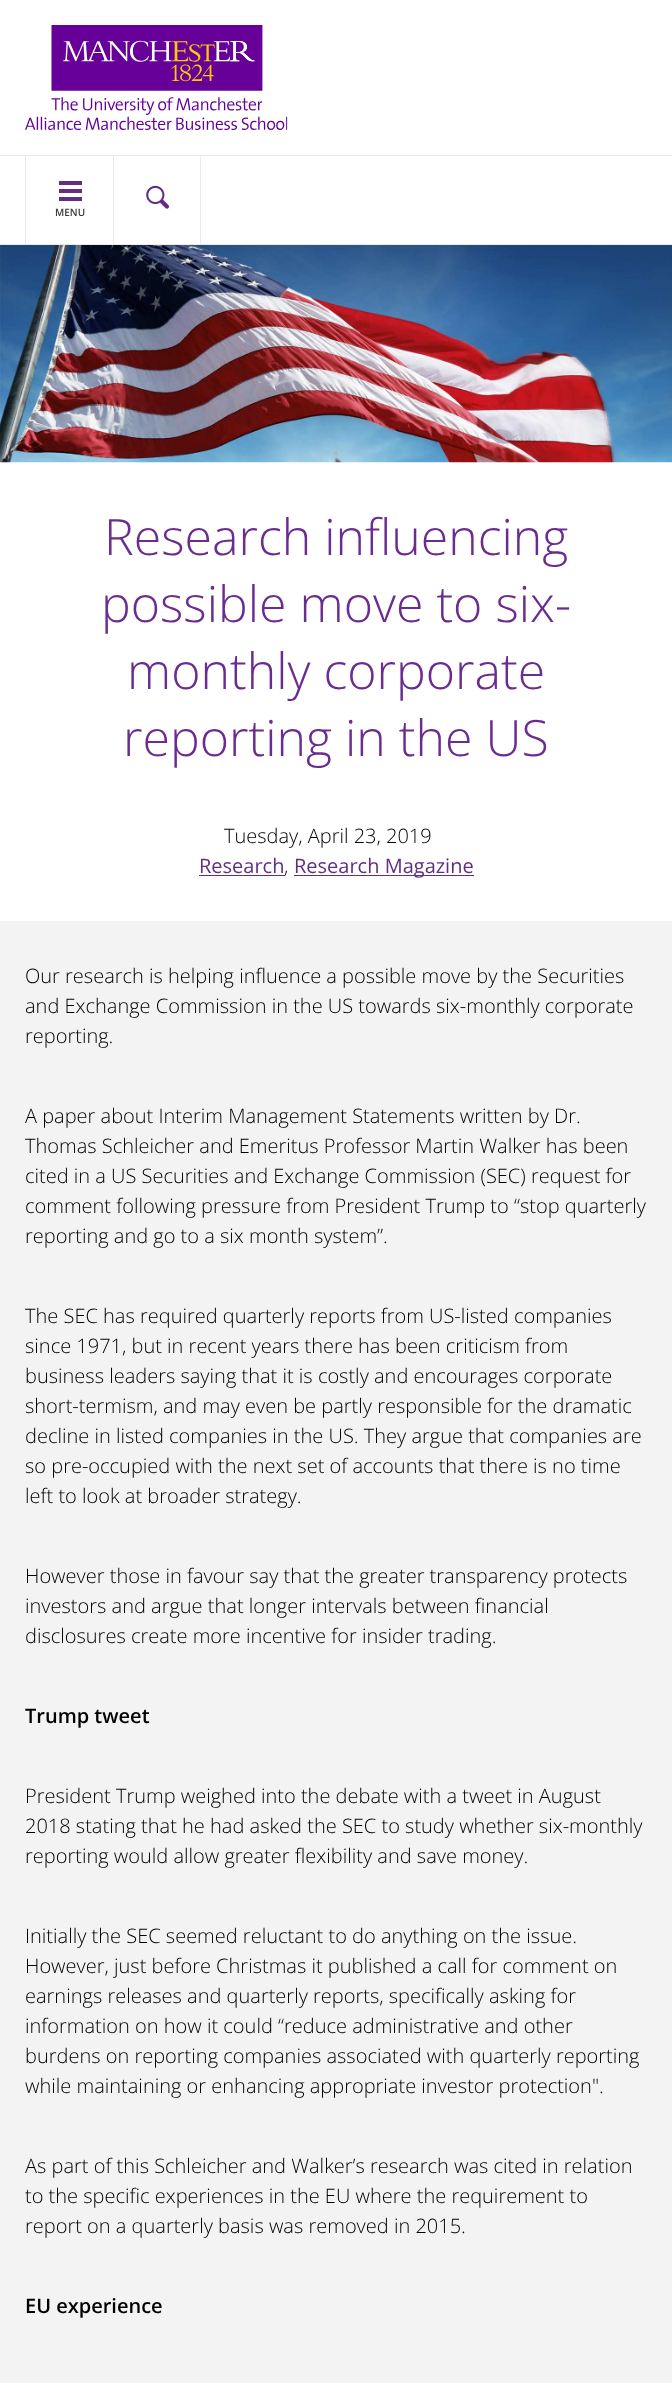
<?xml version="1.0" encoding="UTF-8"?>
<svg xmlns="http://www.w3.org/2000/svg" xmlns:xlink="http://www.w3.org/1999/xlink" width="672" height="2383">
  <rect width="100%" height="100%" fill="#ffffff" />
  <rect y="155" width="672" height="1" fill="#eaeaea" />
  <image x="25" y="25" width="263" height="105" xlink:href="image1.png" />
  <rect y="244" width="672" height="1" fill="#eaeaea" />
  <rect x="25" y="156" width="1" height="88" fill="#eaeaea" />
  <rect x="113" y="156" width="1" height="88" fill="#eaeaea" />
  <rect x="59" y="189" width="23" height="4" fill="#602f85" />
  <rect x="59" y="197" width="23" height="4" fill="#602f85" />
  <rect x="59" y="181" width="23" height="4" fill="#602f85" />
  <rect x="200" y="156" width="1" height="88" fill="#eaeaea" />
  <image x="146" y="185" width="24" height="24" xlink:href="image2.png" />
  <image x="0" y="245" width="672" height="218" xlink:href="image3.png" />
  <rect x="199" y="875" width="86" height="1" fill="#602f85" />
  <rect x="294" y="875" width="180" height="1" fill="#602f85" />
  <rect y="921" width="672" height="1462" fill="#f3f3f3" />
  <text x="55" y="216" style="font-family: Open Sans; font-size: 10px; font-weight: 600; fill: #383b3c">MENU</text>
  <text x="104" y="555" style="font-family: Open Sans; font-size: 50px; font-weight: 300; fill: #6b2c91">Research influencing</text>
  <text x="101" y="622" style="font-family: Open Sans; font-size: 50px; font-weight: 300; fill: #6b2c91">possible move to six-</text>
  <text x="127" y="689" style="font-family: Open Sans; font-size: 50px; font-weight: 300; fill: #6b2c91">monthly corporate</text>
  <text x="123" y="756" style="font-family: Open Sans; font-size: 50px; font-weight: 300; fill: #6b2c91">reporting in the US</text>
  <text x="224" y="843" style="font-family: Open Sans; font-size: 20px; font-weight: 300; fill: #000000">Tuesday, April 23, 2019</text>
  <text x="199" y="873" style="font-family: Open Sans; font-size: 20px; fill: #602f85">Research</text>
  <text x="284" y="873" style="font-family: Open Sans; font-size: 20px; font-weight: 300; fill: #000000">,</text>
  <text x="294" y="873" style="font-family: Open Sans; font-size: 20px; fill: #602f85">Research Magazine</text>
  <text x="25" y="983" style="font-family: Open Sans; font-size: 20px; font-weight: 300; fill: #000000">Our research is helping influence a possible move by the Securities</text>
  <text x="25" y="1013" style="font-family: Open Sans; font-size: 20px; font-weight: 300; fill: #000000">and Exchange Commission in the US towards six-monthly corporate</text>
  <text x="25" y="1043" style="font-family: Open Sans; font-size: 20px; font-weight: 300; fill: #000000">reporting.</text>
  <text x="25" y="1123" style="font-family: Open Sans; font-size: 20px; font-weight: 300; fill: #000000">A paper about Interim Management Statements written by Dr.</text>
  <text x="25" y="1153" style="font-family: Open Sans; font-size: 20px; font-weight: 300; fill: #000000">Thomas Schleicher and Emeritus Professor Martin Walker has been</text>
  <text x="25" y="1183" style="font-family: Open Sans; font-size: 20px; font-weight: 300; fill: #000000">cited in a US Securities and Exchange Commission (SEC) request for</text>
  <text x="25" y="1213" style="font-family: Open Sans; font-size: 20px; font-weight: 300; fill: #000000">comment following pressure from President Trump to “stop quarterly</text>
  <text x="25" y="1243" style="font-family: Open Sans; font-size: 20px; font-weight: 300; fill: #000000">reporting and go to a six month system”.</text>
  <text x="25" y="1323" style="font-family: Open Sans; font-size: 20px; font-weight: 300; fill: #000000">The SEC has required quarterly reports from US-listed companies</text>
  <text x="25" y="1353" style="font-family: Open Sans; font-size: 20px; font-weight: 300; fill: #000000">since 1971, but in recent years there has been criticism from</text>
  <text x="25" y="1383" style="font-family: Open Sans; font-size: 20px; font-weight: 300; fill: #000000">business leaders saying that it is costly and encourages corporate</text>
  <text x="25" y="1413" style="font-family: Open Sans; font-size: 20px; font-weight: 300; fill: #000000">short-termism, and may even be partly responsible for the dramatic</text>
  <text x="25" y="1443" style="font-family: Open Sans; font-size: 20px; font-weight: 300; fill: #000000">decline in listed companies in the US. They argue that companies are</text>
  <text x="25" y="1473" style="font-family: Open Sans; font-size: 20px; font-weight: 300; fill: #000000">so pre-occupied with the next set of accounts that there is no time</text>
  <text x="25" y="1503" style="font-family: Open Sans; font-size: 20px; font-weight: 300; fill: #000000">left to look at broader strategy.</text>
  <text x="25" y="1583" style="font-family: Open Sans; font-size: 20px; font-weight: 300; fill: #000000">However those in favour say that the greater transparency protects</text>
  <text x="25" y="1613" style="font-family: Open Sans; font-size: 20px; font-weight: 300; fill: #000000">investors and argue that longer intervals between financial</text>
  <text x="25" y="1643" style="font-family: Open Sans; font-size: 20px; font-weight: 300; fill: #000000">disclosures create more incentive for insider trading.</text>
  <text x="25" y="1723" style="font-family: Open Sans; font-size: 20px; font-weight: 600; fill: #000000">Trump tweet</text>
  <text x="25" y="1803" style="font-family: Open Sans; font-size: 20px; font-weight: 300; fill: #000000">President Trump weighed into the debate with a tweet in August</text>
  <text x="25" y="1833" style="font-family: Open Sans; font-size: 20px; font-weight: 300; fill: #000000">2018 stating that he had asked the SEC to study whether six-monthly</text>
  <text x="25" y="1863" style="font-family: Open Sans; font-size: 20px; font-weight: 300; fill: #000000">reporting would allow greater flexibility and save money.</text>
  <text x="25" y="1943" style="font-family: Open Sans; font-size: 20px; font-weight: 300; fill: #000000">Initially the SEC seemed reluctant to do anything on the issue.</text>
  <text x="25" y="1973" style="font-family: Open Sans; font-size: 20px; font-weight: 300; fill: #000000">However, just before Christmas it published a call for comment on</text>
  <text x="25" y="2003" style="font-family: Open Sans; font-size: 20px; font-weight: 300; fill: #000000">earnings releases and quarterly reports, specifically asking for</text>
  <text x="25" y="2033" style="font-family: Open Sans; font-size: 20px; font-weight: 300; fill: #000000">information on how it could “reduce administrative and other</text>
  <text x="25" y="2063" style="font-family: Open Sans; font-size: 20px; font-weight: 300; fill: #000000">burdens on reporting companies associated with quarterly reporting</text>
  <text x="25" y="2093" style="font-family: Open Sans; font-size: 20px; font-weight: 300; fill: #000000">while maintaining or enhancing appropriate investor protection".</text>
  <text x="25" y="2173" style="font-family: Open Sans; font-size: 20px; font-weight: 300; fill: #000000">As part of this Schleicher and Walker’s research was cited in relation</text>
  <text x="25" y="2203" style="font-family: Open Sans; font-size: 20px; font-weight: 300; fill: #000000">to the specific experiences in the EU where the requirement to</text>
  <text x="25" y="2233" style="font-family: Open Sans; font-size: 20px; font-weight: 300; fill: #000000">report on a quarterly basis was removed in 2015.</text>
  <text x="25" y="2313" style="font-family: Open Sans; font-size: 20px; font-weight: 600; fill: #000000">EU experience</text>
</svg>
